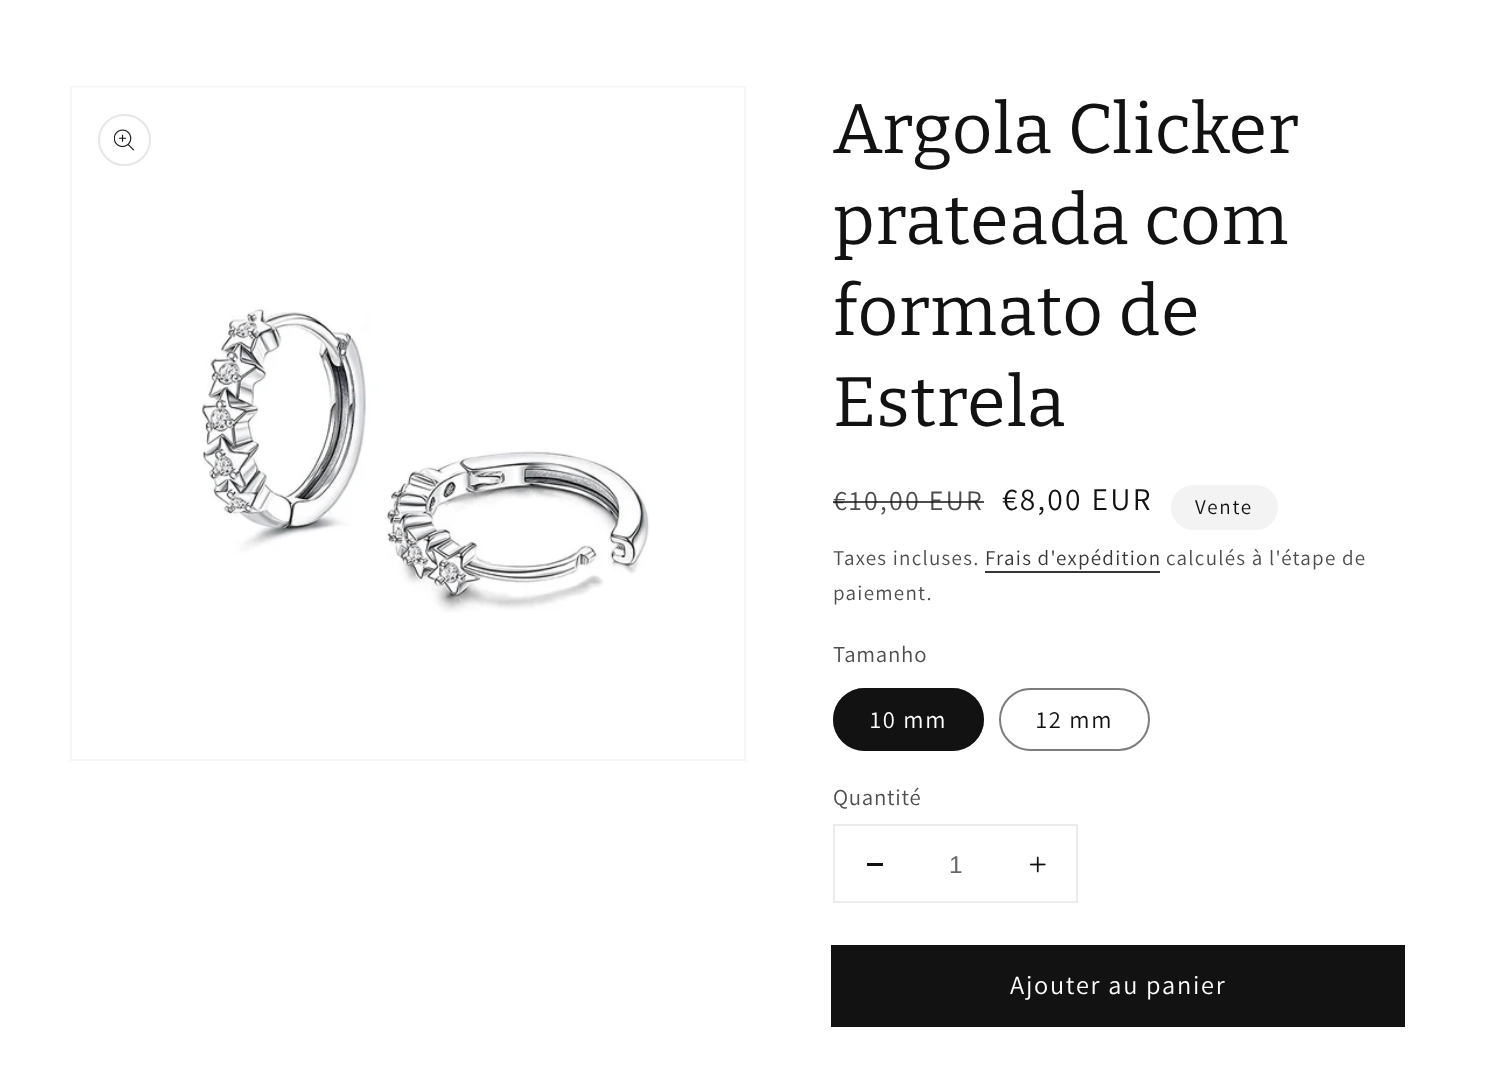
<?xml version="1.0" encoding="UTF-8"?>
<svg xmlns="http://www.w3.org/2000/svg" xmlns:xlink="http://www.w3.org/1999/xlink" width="1490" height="1071">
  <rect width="100%" height="100%" fill="#ffffff" />
  <rect x="71" y="87" width="674" height="673" fill="none" stroke="#f6f6f6" stroke-width="2" />
  <image x="72" y="87" width="671" height="526" xlink:href="image1.png" />
  <rect x="99" y="115" width="51" height="50" rx="25" fill="none" stroke="#e7e7e7" stroke-width="2" />
  <image x="114" y="129" width="20" height="22" xlink:href="image2.png" />
  <rect x="1172" y="486" width="105" height="43" rx="21.5" fill="#f3f3f3" stroke="#f3f3f3" stroke-width="2" />
  <rect x="985" y="571" width="175" height="2" fill="#363636" />
  <rect x="833" y="688" width="151" height="63" rx="31.5" fill="#121212" />
  <rect x="834" y="689" width="149" height="61" rx="30.5" fill="none" stroke="#121212" stroke-opacity="0.55" stroke-width="2" />
  <rect x="1000" y="689" width="149" height="61" rx="30.5" fill="none" stroke="#7d7d7d" stroke-width="2" />
  <rect x="834" y="825" width="243" height="77" fill="none" stroke="#ececec" stroke-width="2" />
  <rect x="867" y="863" width="16" height="3" fill="#121212" />
  <image x="1029" y="856" width="17" height="17" xlink:href="image3.png" />
  <rect x="832" y="946" width="572" height="80" fill="none" stroke="#121212" stroke-width="2" />
  <rect x="833" y="947" width="570" height="78" fill="#121212" />
  <text x="833" y="153" style="font-family: Bitter; font-size: 70px; letter-spacing: 1px; fill: #121212">Argola Clicker</text>
  <text x="833" y="244" style="font-family: Bitter; font-size: 70px; letter-spacing: 1px; fill: #121212">prateada com</text>
  <text x="833" y="335" style="font-family: Bitter; font-size: 70px; letter-spacing: 1px; fill: #121212">formato de</text>
  <text x="833" y="426" style="font-family: Bitter; font-size: 70px; letter-spacing: 1px; fill: #121212">Estrela</text>
  <text x="833" y="510" style="font-family: Assistant; font-size: 28px; letter-spacing: 2.25px; fill: #4d4d4d">€10,00 EUR</text>
  <rect x="833" y="501" width="151" height="2" fill="#121212" fill-opacity="0.75" />
  <text x="1002" y="510" style="font-family: Assistant; font-size: 31.5px; letter-spacing: 2.25px; fill: #121212">€8,00 EUR</text>
  <text x="1195" y="514" style="font-family: Assistant; font-size: 21px; letter-spacing: 1.75px; fill: #121212">Vente</text>
  <text x="833" y="565" style="font-family: Assistant; font-size: 21px; letter-spacing: 1.25px; fill: #4d4d4d">Taxes incluses.</text>
  <text x="985" y="565" style="font-family: Assistant; font-size: 21px; letter-spacing: 1.25px; fill: #363636">Frais d'expédition</text>
  <text x="1166" y="565" style="font-family: Assistant; font-size: 21px; letter-spacing: 1.25px; fill: #4d4d4d">calculés à l'étape de</text>
  <text x="833" y="600" style="font-family: Assistant; font-size: 21px; letter-spacing: 1.25px; fill: #4d4d4d">paiement.</text>
  <text x="833" y="662" style="font-family: Assistant; font-size: 22.75px; letter-spacing: 0.75px; fill: #4d4d4d">Tamanho</text>
  <text x="870" y="728" style="font-family: Assistant; font-size: 24.5px; letter-spacing: 1.75px; fill: #ffffff">10 mm</text>
  <text x="1036" y="728" style="font-family: Assistant; font-size: 24.5px; letter-spacing: 1.75px; fill: #121212">12 mm</text>
  <text x="833" y="805" style="font-family: Assistant; font-size: 22.75px; letter-spacing: 0.75px; fill: #4d4d4d">Quantité</text>
  <text x="949" y="873" style="font-family: Liberation Sans; font-size: 24.5px; fill: #686868">1</text>
  <text x="1010" y="994" style="font-family: Assistant; font-size: 26.25px; letter-spacing: 1.75px; fill: #ffffff">Ajouter au panier</text>
</svg>
